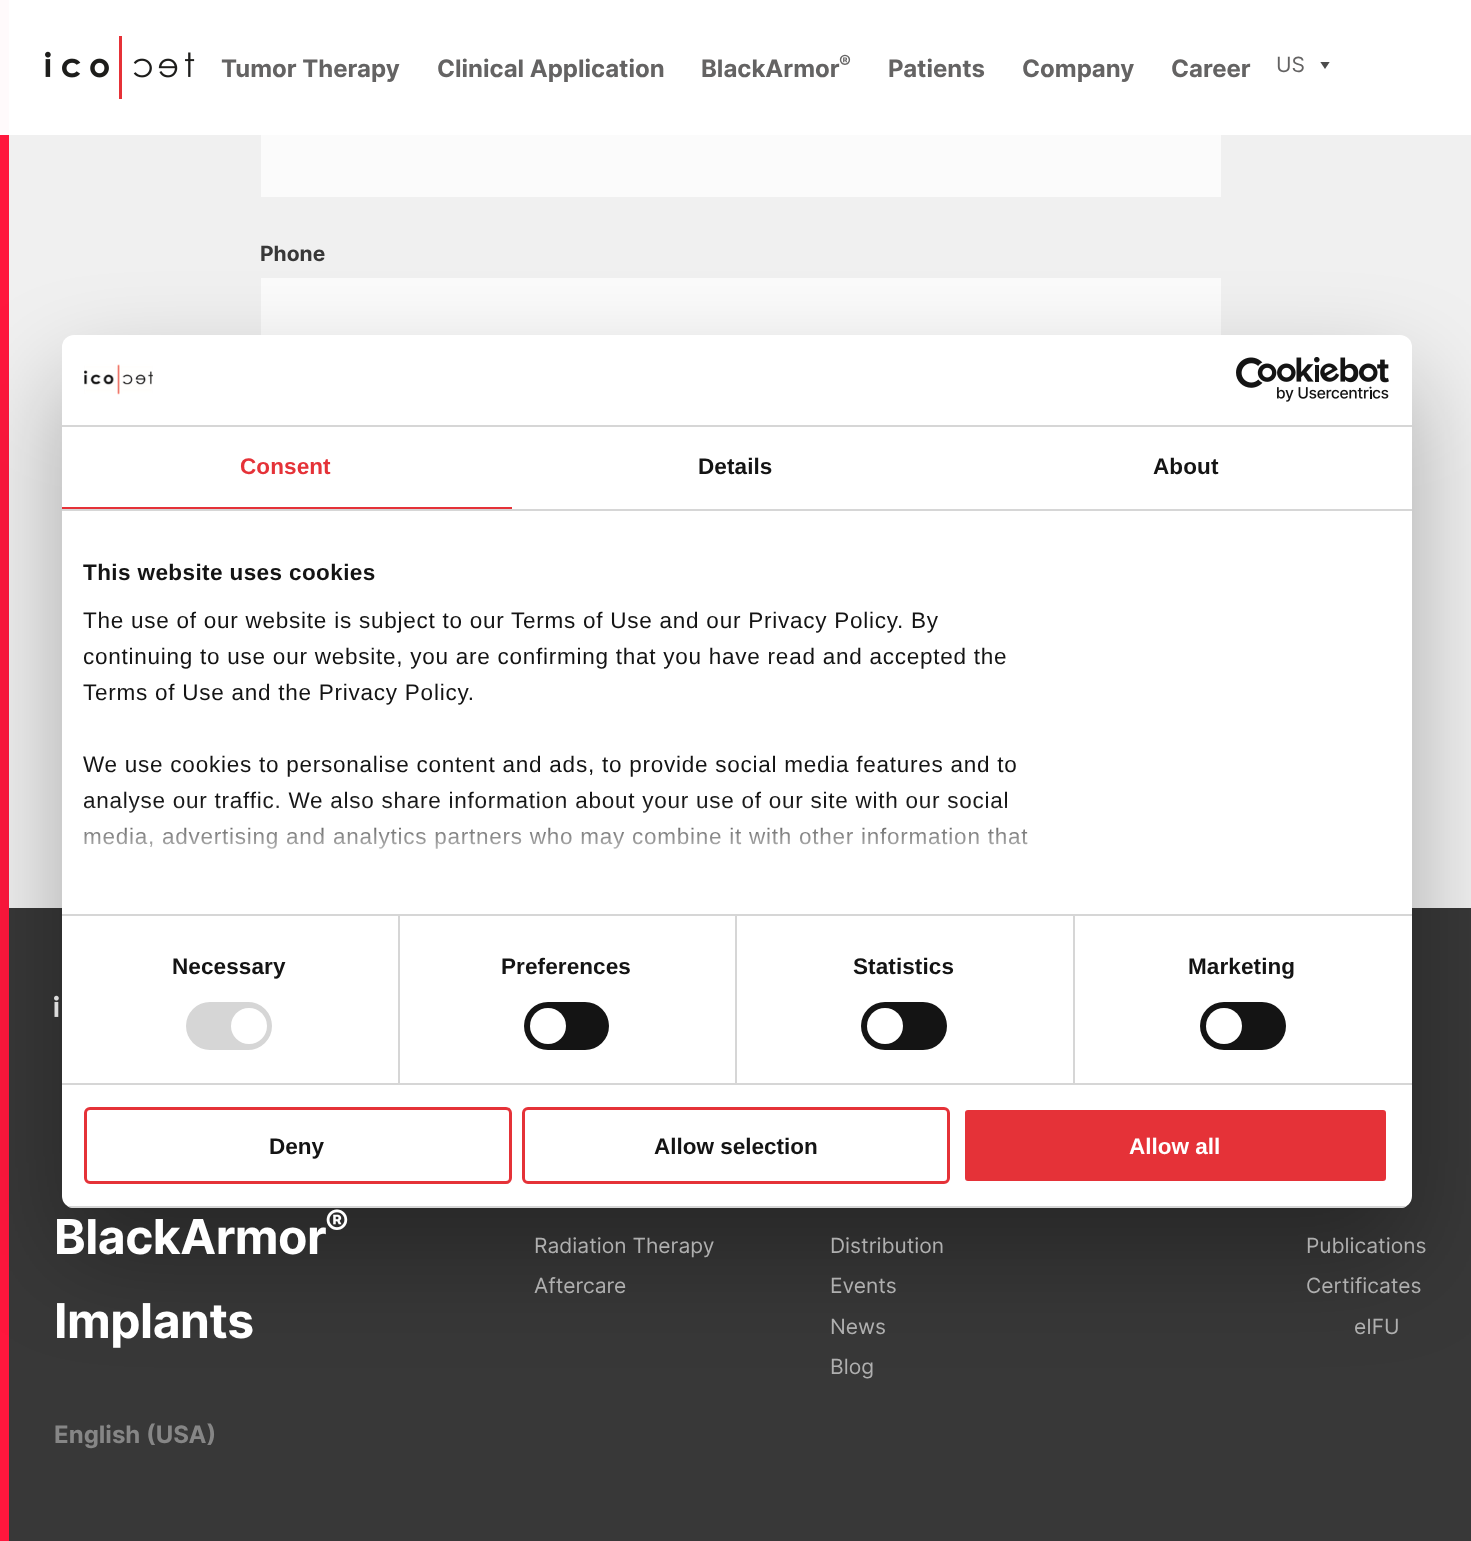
<?xml version="1.0" encoding="UTF-8"?>
<svg xmlns="http://www.w3.org/2000/svg" xmlns:xlink="http://www.w3.org/1999/xlink" width="1471" height="1541">
  <defs>
    <clipPath id="clip1"><rect x="1320" y="62" width="11" height="7" /></clipPath>
    <clipPath id="clip2"><rect x="62" y="335" width="1350" height="873" rx="12" /></clipPath>
    <linearGradient id="g1" gradientUnits="userSpaceOnUse" x1="727" y1="913" x2="727" y2="801"><stop offset="0" stop-color="#ffffff" /><stop offset="0.5" stop-color="#ffffff" stop-opacity="0.8" /><stop offset="1" stop-color="#ffffff" stop-opacity="0" /></linearGradient>
  </defs>
  <rect width="100%" height="100%" fill="#383838" />
  <rect x="9" width="1462" height="135" fill="#ffffff" />
  <image x="45" y="36" width="150" height="63" xlink:href="image1.png" />
  <g clip-path="url(#clip1)">
    <path d="M 1320 61.5 l 5 7.5 l 5 -7.5 z" fill="#4c4c4c" fill-rule="evenodd" />
  </g>
  <rect x="9" y="135" width="1462" height="773" fill="#f0f0f0" />
  <rect width="9" height="135" fill="#fffafb" />
  <rect x="261" y="135" width="960" height="62" fill="#fbfbfb" />
  <rect x="261" y="278" width="960" height="57" fill="#fbfbfb" />
  <rect y="135" width="9" height="1406" fill="#ff173d" />
  <image x="54" y="995" width="5" height="22" xlink:href="image4.png" />
  <rect x="62" y="383" width="1350" height="873" rx="12" fill="#000000" fill-opacity="0.3" filter="blur(51px)" />
  <rect x="62" y="335" width="1350" height="873" rx="12" fill="#ffffff" />
  <rect x="62" y="425" width="1350" height="2" fill="#d6d6d6" />
  <image x="84" y="364" width="69" height="31" xlink:href="image2.png" />
  <image x="1236" y="357" width="153" height="45" xlink:href="image3.png" />
  <rect x="62" y="509" width="1350" height="2" fill="#d6d6d6" />
  <rect x="62" y="507" width="450" height="2" fill="#e53238" />
  <rect x="398" y="915" width="2" height="168" fill="#d6d6d6" />
  <rect x="735" y="915" width="2" height="168" fill="#d6d6d6" />
  <rect x="1073" y="915" width="2" height="168" fill="#d6d6d6" />
  <rect x="62" y="914" width="1350" height="2" fill="#d6d6d6" />
  <rect x="62" y="1083" width="1350" height="2" fill="#d6d6d6" />
  <rect x="186" y="1002" width="86" height="48" rx="24" fill="#d6d6d6" />
  <circle cx="249" cy="1026" r="18" fill="#ffffff" />
  <rect x="524" y="1002" width="85" height="48" rx="24" fill="#141414" />
  <circle cx="548" cy="1026" r="18" fill="#ffffff" />
  <rect x="861" y="1002" width="86" height="48" rx="24" fill="#141414" />
  <circle cx="885" cy="1026" r="18" fill="#ffffff" />
  <rect x="1200" y="1002" width="86" height="48" rx="24" fill="#141414" />
  <circle cx="1224" cy="1026" r="18" fill="#ffffff" />
  <g clip-path="url(#clip2)">
    <rect x="62" y="1206" width="1350" height="2" fill="#d6d6d6" />
  </g>
  <rect x="85.5" y="1108.5" width="425" height="74" rx="4.5" fill="none" stroke="#e53238" stroke-width="3" />
  <rect x="523.5" y="1108.5" width="425" height="74" rx="4.5" fill="none" stroke="#e53238" stroke-width="3" />
  <rect x="963.5" y="1108.5" width="424" height="74" rx="4.5" fill="#e53238" stroke="#ffffff" stroke-width="3" />
  <text x="221" y="77" style="font-family: Inter; font-size: 24px; font-weight: bold; fill: #646363">Tumor Therapy</text>
  <text x="437" y="77" style="font-family: Inter; font-size: 24px; font-weight: bold; fill: #646363">Clinical Application</text>
  <text x="701" y="77" style="font-family: Inter; font-size: 24px; font-weight: bold; fill: #646363">BlackArmor</text>
  <text x="839" y="68" style="font-family: Inter; font-size: 18px; font-weight: bold; fill: #646363">®</text>
  <text x="888" y="77" style="font-family: Inter; font-size: 24px; font-weight: bold; fill: #646363">Patients</text>
  <text x="1022" y="77" style="font-family: Inter; font-size: 24px; font-weight: bold; fill: #646363">Company</text>
  <text x="1171" y="77" style="font-family: Inter; font-size: 24px; font-weight: bold; fill: #646363">Career</text>
  <text x="1276" y="72" style="font-family: Inter; font-size: 21px; fill: #646363">US</text>
  <text x="260" y="261" style="font-family: Inter; font-size: 21px; font-weight: bold; fill: #383838">Phone</text>
  <text x="240" y="474" style="font-family: Liberation Sans; font-size: 22.5px; font-weight: bold; letter-spacing: 0.1px; fill: #e53238">Consent</text>
  <text x="698" y="474" style="font-family: Liberation Sans; font-size: 22.5px; font-weight: bold; letter-spacing: 0.1px; fill: #141414">Details</text>
  <text x="1153" y="474" style="font-family: Liberation Sans; font-size: 22.5px; font-weight: bold; letter-spacing: 0.1px; fill: #141414">About</text>
  <text x="83" y="580" style="font-family: Liberation Sans; font-size: 22.5px; font-weight: bold; letter-spacing: 0.4px; fill: #141414">This website uses cookies</text>
  <text x="83" y="628" style="font-family: Liberation Sans; font-size: 22.5px; letter-spacing: 0.75px; fill: #141414">The use of our website is subject to our Terms of Use and our Privacy Policy. By</text>
  <text x="83" y="664" style="font-family: Liberation Sans; font-size: 22.5px; letter-spacing: 0.75px; fill: #141414">continuing to use our website, you are confirming that you have read and accepted the</text>
  <text x="83" y="700" style="font-family: Liberation Sans; font-size: 22.5px; letter-spacing: 0.75px; fill: #141414">Terms of Use and the Privacy Policy.</text>
  <text x="83" y="772" style="font-family: Liberation Sans; font-size: 22.5px; letter-spacing: 0.75px; fill: #141414">We use cookies to personalise content and ads, to provide social media features and to</text>
  <text x="83" y="808" style="font-family: Liberation Sans; font-size: 22.5px; letter-spacing: 0.75px; fill: #141414">analyse our traffic. We also share information about your use of our site with our social</text>
  <text x="83" y="844" style="font-family: Liberation Sans; font-size: 22.5px; letter-spacing: 0.75px; fill: #141414">media, advertising and analytics partners who may combine it with other information that</text>
  <rect x="84" y="803" width="944" height="46" fill="url(#g1)" />
  <text x="172" y="974" style="font-family: Liberation Sans; font-size: 22.5px; font-weight: bold; letter-spacing: 0.1px; fill: #141414">Necessary</text>
  <text x="501" y="974" style="font-family: Liberation Sans; font-size: 22.5px; font-weight: bold; letter-spacing: 0.1px; fill: #141414">Preferences</text>
  <text x="853" y="974" style="font-family: Liberation Sans; font-size: 22.5px; font-weight: bold; letter-spacing: 0.1px; fill: #141414">Statistics</text>
  <text x="1188" y="974" style="font-family: Liberation Sans; font-size: 22.5px; font-weight: bold; letter-spacing: 0.1px; fill: #141414">Marketing</text>
  <text x="269" y="1154" style="font-family: Liberation Sans; font-size: 22.5px; font-weight: bold; fill: #141414">Deny</text>
  <text x="654" y="1154" style="font-family: Liberation Sans; font-size: 22.5px; font-weight: bold; fill: #141414">Allow selection</text>
  <text x="1129" y="1154" style="font-family: Liberation Sans; font-size: 22.5px; font-weight: bold; fill: #ffffff">Allow all</text>
  <text x="54" y="1254" style="font-family: Inter; font-size: 48px; font-weight: bold; letter-spacing: -0.5px; fill: #ffffff">BlackArmor</text>
  <text x="325" y="1236" style="font-family: Inter; font-size: 36px; font-weight: bold; letter-spacing: -0.5px; fill: #ffffff">®</text>
  <text x="54" y="1338" style="font-family: Inter; font-size: 48px; font-weight: bold; letter-spacing: -0.5px; fill: #ffffff">Implants</text>
  <text x="54" y="1443" style="font-family: Inter; font-size: 24px; font-weight: bold; fill: #868686">English (USA)</text>
  <text x="534" y="1253" style="font-family: Inter; font-size: 21px; fill: #afafaf">Radiation Therapy</text>
  <text x="534" y="1293" style="font-family: Inter; font-size: 21px; fill: #afafaf">Aftercare</text>
  <text x="830" y="1253" style="font-family: Inter; font-size: 21px; fill: #afafaf">Distribution</text>
  <text x="830" y="1293" style="font-family: Inter; font-size: 21px; fill: #afafaf">Events</text>
  <text x="830" y="1334" style="font-family: Inter; font-size: 21px; fill: #afafaf">News</text>
  <text x="830" y="1374" style="font-family: Inter; font-size: 21px; fill: #afafaf">Blog</text>
  <text x="1306" y="1253" style="font-family: Inter; font-size: 21px; fill: #afafaf">Publications</text>
  <text x="1306" y="1293" style="font-family: Inter; font-size: 21px; fill: #afafaf">Certificates</text>
  <text x="1354" y="1334" style="font-family: Inter; font-size: 21px; fill: #afafaf">eIFU</text>
</svg>
